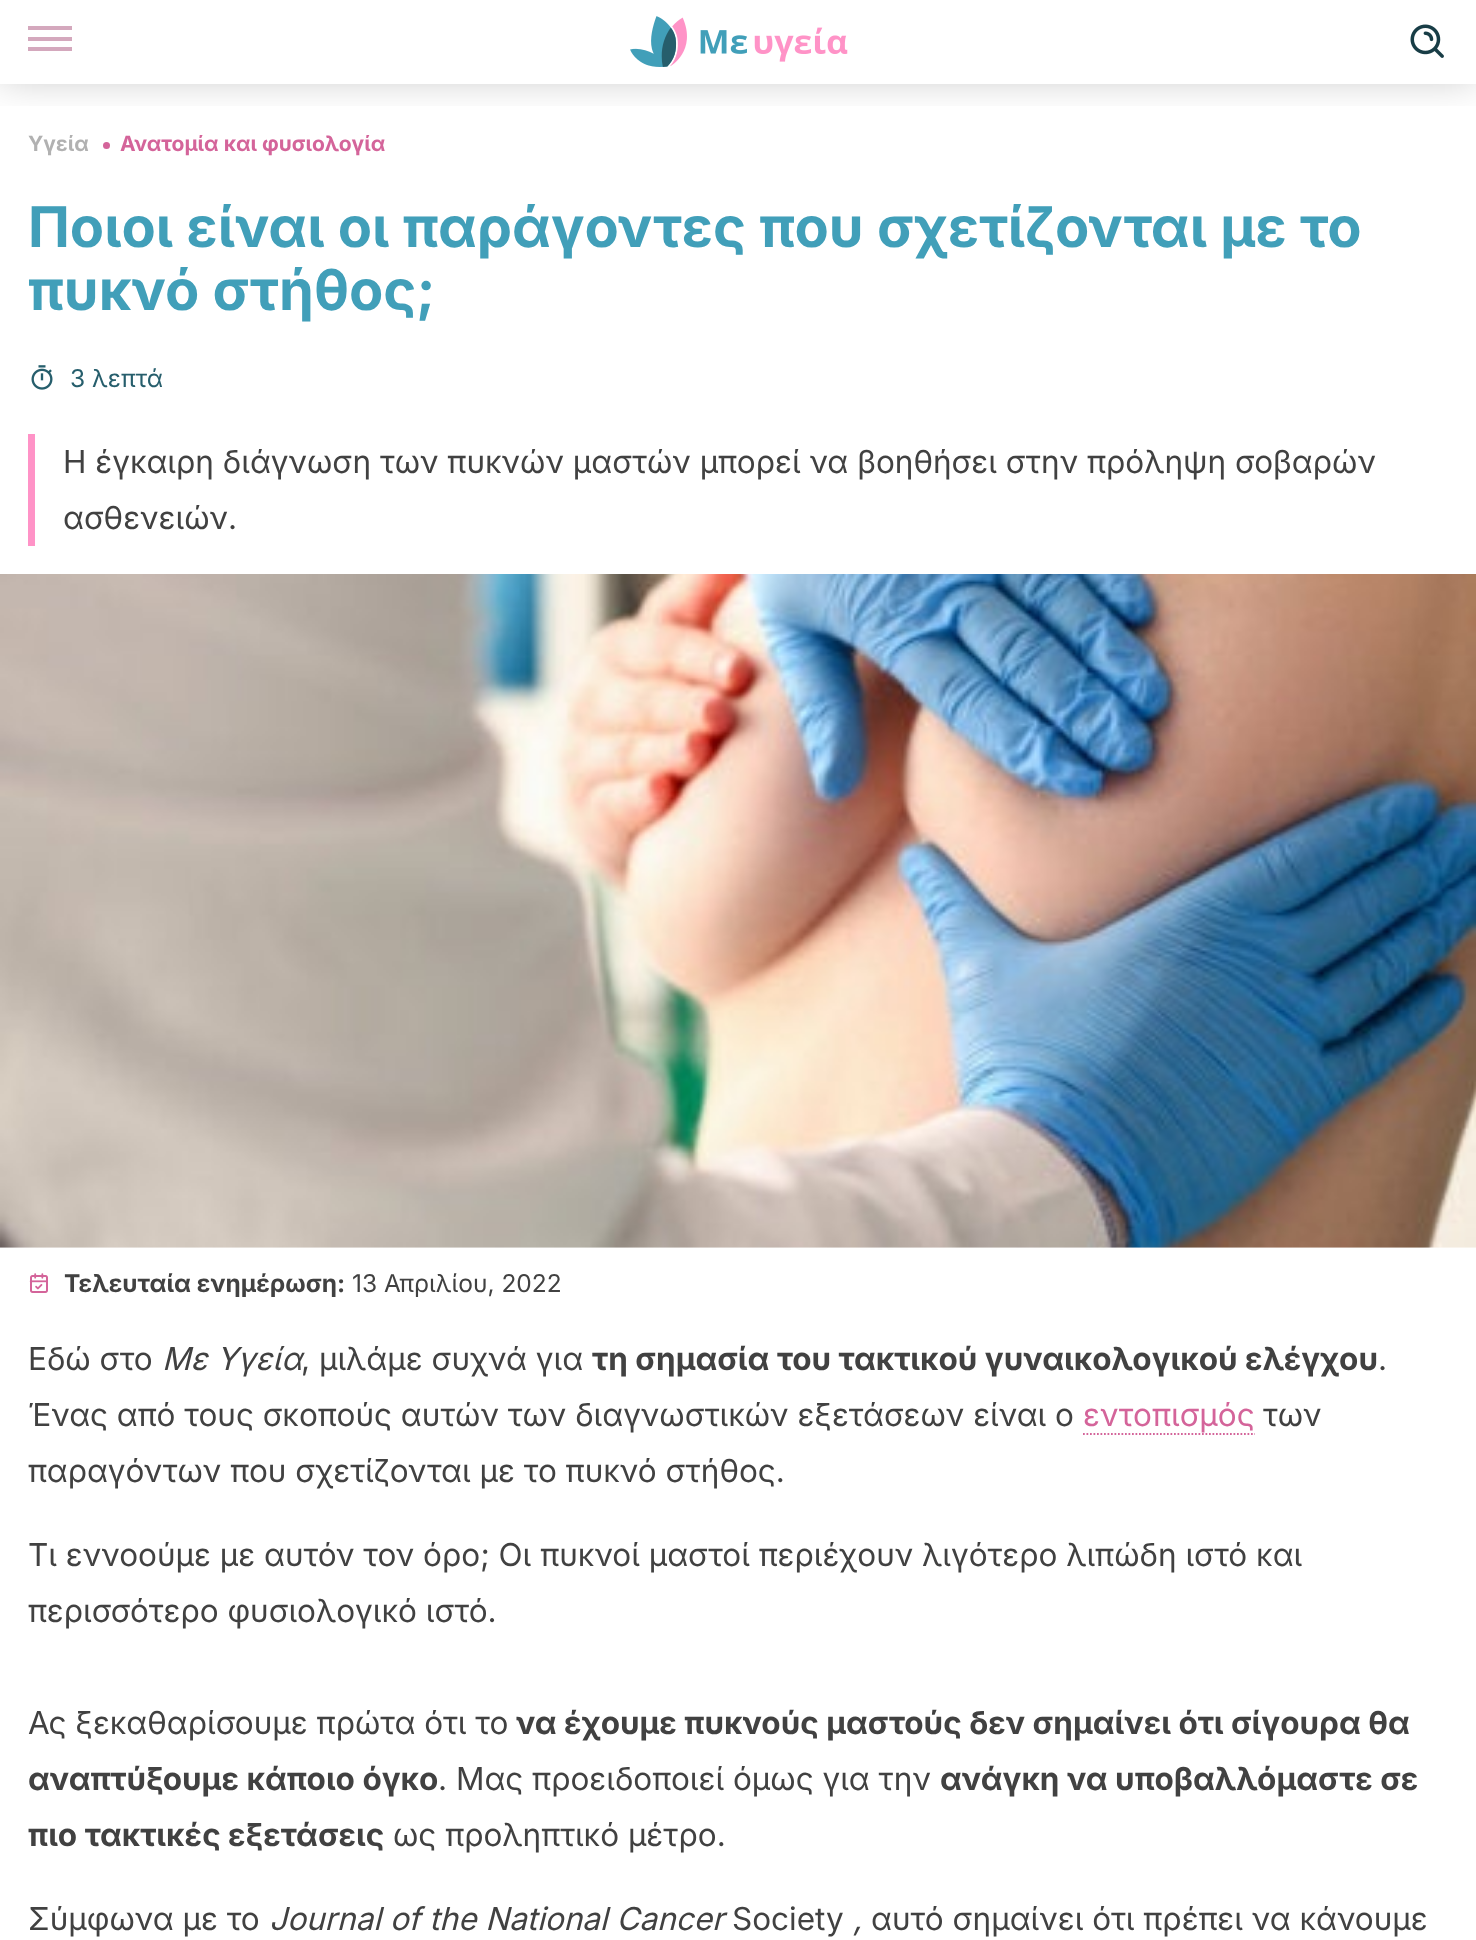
<?xml version="1.0" encoding="UTF-8"?>
<svg xmlns="http://www.w3.org/2000/svg" xmlns:xlink="http://www.w3.org/1999/xlink" width="1476" height="1940">
  <defs>
    <clipPath id="clip1"><rect x="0" y="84" width="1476" height="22" /></clipPath>
  </defs>
  <rect width="100%" height="100%" fill="#ffffff" />
  <g clip-path="url(#clip1)">
    <rect y="-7" width="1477" height="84" fill="#000000" fill-opacity="0.25" filter="blur(21px)" />
  </g>
  <rect x="28" y="26" width="44" height="4" fill="#d4a8bd" />
  <rect x="28" y="37" width="44" height="4" fill="#d4a8bd" />
  <rect x="28" y="47" width="44" height="4" fill="#d4a8bd" />
  <image x="630" y="16" width="218" height="51" xlink:href="image1.png" />
  <image x="1410" y="24" width="34" height="34" xlink:href="image2.png" />
  <circle cx="106.5" cy="145.5" r="3.5" fill="#d4649a" />
  <image x="31" y="365" width="22" height="25" xlink:href="image3.png" />
  <rect x="28" y="434" width="7" height="112" fill="#ff93c7" />
  <image x="0" y="574" width="1476" height="674" xlink:href="image4.png" />
  <image x="29" y="1273" width="19" height="20" xlink:href="image5.png" />
  <path d="M 1083 1434 h 172" fill="none" stroke="#d4649a" stroke-width="1.8" stroke-dasharray="1.75 1.75" />
  <text x="28" y="151" style="font-family: Inter; font-size: 21px; font-weight: bold; fill: #b1b1b1">Υγεία</text>
  <text x="120" y="151" style="font-family: Inter; font-size: 21px; font-weight: bold; fill: #d4649a">Ανατομία και φυσιολογία</text>
  <text x="28" y="247" style="font-family: Inter; font-size: 56px; font-weight: bold; fill: #419fb9">Ποιοι είναι οι παράγοντες που σχετίζονται με το</text>
  <text x="28" y="310" style="font-family: Inter; font-size: 56px; font-weight: bold; fill: #419fb9">πυκνό στήθος;</text>
  <text x="70" y="387" style="font-family: Inter; font-size: 24.5px; fill: #265e6c">3 λεπτά</text>
  <text x="63" y="473" style="font-family: Inter; font-size: 31.5px; fill: #414141">Η έγκαιρη διάγνωση των πυκνών μαστών μπορεί να βοηθήσει στην πρόληψη σοβαρών</text>
  <text x="63" y="529" style="font-family: Inter; font-size: 31.5px; fill: #414141">ασθενειών.</text>
  <text x="64" y="1292" style="font-family: Inter; font-size: 24.5px; font-weight: bold; fill: #414141">Τελευταία ενημέρωση:</text>
  <text x="352" y="1292" style="font-family: Inter; font-size: 24.5px; fill: #414141">13 Απριλίου, 2022</text>
  <text x="28" y="1370" style="font-family: Inter; font-size: 31.5px; fill: #414141">Εδώ στο</text>
  <text x="162" y="1370" style="font-family: Inter; font-size: 31.5px; font-style: italic; fill: #414141">Με Υγεία</text>
  <text x="301" y="1370" style="font-family: Inter; font-size: 31.5px; fill: #414141">, μιλάμε συχνά για</text>
  <text x="592" y="1370" style="font-family: Inter; font-size: 31.5px; font-weight: bold; fill: #414141">τη σημασία του τακτικού γυναικολογικού ελέγχου</text>
  <text x="1378" y="1370" style="font-family: Inter; font-size: 31.5px; fill: #414141">.</text>
  <text x="28" y="1426" style="font-family: Inter; font-size: 31.5px; fill: #414141">Ένας από τους σκοπούς αυτών των διαγνωστικών εξετάσεων είναι ο</text>
  <text x="1083" y="1426" style="font-family: Inter; font-size: 31.5px; fill: #d4649a">εντοπισμός</text>
  <text x="1263" y="1426" style="font-family: Inter; font-size: 31.5px; fill: #414141">των</text>
  <text x="28" y="1482" style="font-family: Inter; font-size: 31.5px; fill: #414141">παραγόντων που σχετίζονται με το πυκνό στήθος.</text>
  <text x="28" y="1566" style="font-family: Inter; font-size: 31.5px; fill: #414141">Τι εννοούμε με αυτόν τον όρο; Οι πυκνοί μαστοί περιέχουν λιγότερο λιπώδη ιστό και</text>
  <text x="28" y="1622" style="font-family: Inter; font-size: 31.5px; fill: #414141">περισσότερο φυσιολογικό ιστό.</text>
  <text x="28" y="1734" style="font-family: Inter; font-size: 31.5px; fill: #414141">Ας ξεκαθαρίσουμε πρώτα ότι το</text>
  <text x="516" y="1734" style="font-family: Inter; font-size: 31.5px; font-weight: bold; fill: #414141">να έχουμε πυκνούς μαστούς δεν σημαίνει ότι σίγουρα θα</text>
  <text x="28" y="1790" style="font-family: Inter; font-size: 31.5px; font-weight: bold; fill: #414141">αναπτύξουμε κάποιο όγκο</text>
  <text x="438" y="1790" style="font-family: Inter; font-size: 31.5px; fill: #414141">. Μας προειδοποιεί όμως για την</text>
  <text x="940" y="1790" style="font-family: Inter; font-size: 31.5px; font-weight: bold; fill: #414141">ανάγκη να υποβαλλόμαστε σε</text>
  <text x="28" y="1846" style="font-family: Inter; font-size: 31.5px; font-weight: bold; fill: #414141">πιο τακτικές εξετάσεις</text>
  <text x="393" y="1846" style="font-family: Inter; font-size: 31.5px; fill: #414141">ως προληπτικό μέτρο.</text>
  <text x="28" y="1930" style="font-family: Inter; font-size: 31.5px; fill: #414141">Σύμφωνα με το</text>
  <text x="269" y="1930" style="font-family: Inter; font-size: 31.5px; font-style: italic; fill: #414141">Journal of the National Cancer</text>
  <text x="732" y="1930" style="font-family: Inter; font-size: 31.5px; fill: #414141">Society</text>
  <text x="853" y="1930" style="font-family: Inter; font-size: 31.5px; font-style: italic; fill: #414141">,</text>
  <text x="871" y="1930" style="font-family: Inter; font-size: 31.5px; fill: #414141">αυτό σημαίνει ότι πρέπει να κάνουμε</text>
</svg>
